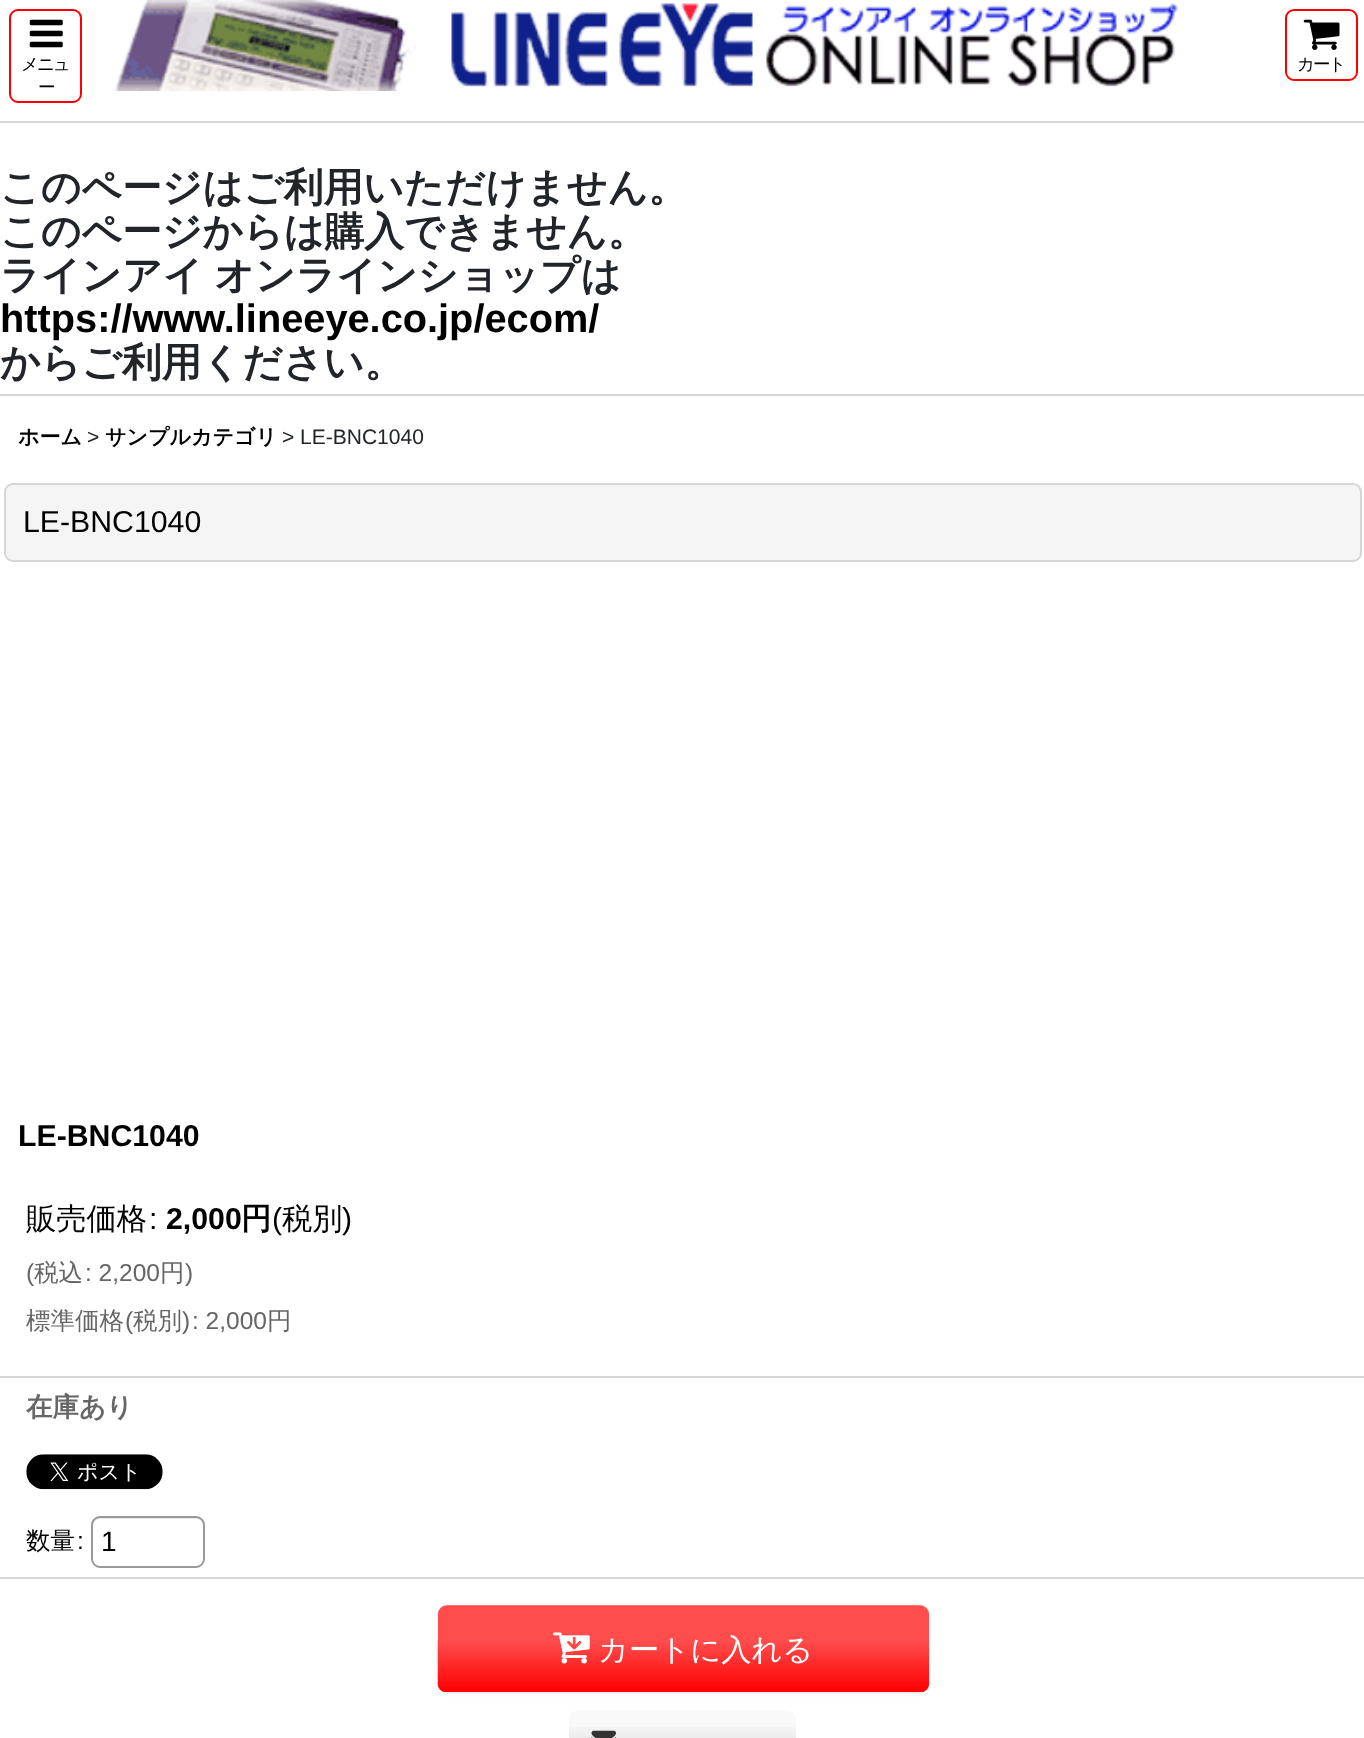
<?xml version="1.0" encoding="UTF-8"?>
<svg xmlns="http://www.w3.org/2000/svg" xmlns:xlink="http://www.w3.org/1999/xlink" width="1364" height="1738">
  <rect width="100%" height="100%" fill="#ffffff" />
  <rect y="121" width="1364" height="2" fill="#d6d6d6" />
  <rect x="10" y="10" width="71" height="92" rx="8" fill="none" stroke="#ff0000" stroke-width="2" />
  <image x="29" y="19" width="34" height="29" xlink:href="image1.png" />
  <image x="114" y="0" width="1065" height="91" xlink:href="image2.png" />
  <rect x="1286" y="10" width="71" height="70" rx="8" fill="none" stroke="#ff0000" stroke-width="2" />
  <image x="1303" y="19" width="37" height="31" xlink:href="image3.png" />
  <rect y="394" width="1364" height="2" fill="#d6d6d6" />
  <rect x="5" y="484" width="1356" height="77" rx="8" fill="#f5f5f5" stroke="#d6d6d6" stroke-width="2" />
  <rect y="1376" width="1364" height="2" fill="#d6d6d6" />
  <image x="26" y="1454" width="137" height="36" xlink:href="image4.png" />
  <rect y="1577" width="1364" height="2" fill="#d6d6d6" />
  <path d="M 100 1519 h 96 c 4 0 7 3 7 7 c 0 -13 -13 -9 -23 -9 h -64 c -10 0 -23 -4 -23 9 c 0 -4 3 -7 7 -7 z" fill="#ececec" />
  <rect x="92" y="1517" width="112" height="50" rx="8" fill="none" stroke="#999999" stroke-width="2" />
  <rect x="438" y="1607" width="491" height="87" rx="9" fill="#000000" fill-opacity="0.05" filter="blur(2px)" />
  <rect x="438" y="1605" width="491" height="87" rx="9" fill="#ff4d4d" />
  <image x="437" y="1639" width="493" height="54" xlink:href="image5.png" />
  <path d="M 446 1606 h 474 c 5 0 9 4 9 9 c 0 -5 -3 -10 -9 -10 h -473 c -6 0 -9 5 -9 10 c 0 -5 3 -9 8 -9 z" fill="#ffffff" fill-opacity="0.2" />
  <image x="553" y="1632" width="37" height="32" xlink:href="image6.png" />
  <rect x="569" y="1710" width="227" height="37" rx="9" fill="#f9f9f9" />
  <image x="569" y="1727" width="227" height="11" xlink:href="image7.png" />
  <image x="591" y="1730" width="25" height="8" xlink:href="image8.png" />
  <text x="21" y="70" style="font-family: WenQuanYi Zen Hei; font-size: 17.5px; font-weight: 500; letter-spacing: -2px; fill: #000000">メニュ</text>
  <text x="38" y="93" style="font-family: WenQuanYi Zen Hei; font-size: 17.5px; font-weight: 500; letter-spacing: -2px; fill: #000000">ー</text>
  <text x="1297" y="70" style="font-family: WenQuanYi Zen Hei; font-size: 17.5px; font-weight: 500; letter-spacing: -2px; fill: #000000">カート</text>
  <text x="0" y="201" style="font-family: WenQuanYi Zen Hei; font-size: 39.75px; font-weight: bold; fill: #212529">このページはご利用いただけません。</text>
  <text x="0" y="245" style="font-family: WenQuanYi Zen Hei; font-size: 39.75px; font-weight: bold; fill: #212529">このページからは購入できません。</text>
  <text x="0" y="289" word-spacing="-1" style="font-family: WenQuanYi Zen Hei; font-size: 39.75px; font-weight: bold; fill: #212529">ラインアイ オンラインショップは</text>
  <text x="0" y="332" style="font-family: Liberation Sans; font-size: 39.75px; font-weight: bold; fill: #000000">https://www.lineeye.co.jp/ecom/</text>
  <text x="0" y="376" style="font-family: WenQuanYi Zen Hei; font-size: 39.75px; font-weight: bold; fill: #212529">からご利用ください。</text>
  <text x="18" y="444" style="font-family: WenQuanYi Zen Hei; font-size: 21px; font-weight: bold; fill: #000000">ホーム</text>
  <text x="87" y="444" style="font-family: Liberation Sans; font-size: 21px; fill: #212529">&gt;</text>
  <text x="105" y="444" style="font-family: WenQuanYi Zen Hei; font-size: 21px; font-weight: bold; fill: #000000">サンプルカテゴリ</text>
  <text x="282" y="444" style="font-family: Liberation Sans; font-size: 21px; fill: #212529">&gt; LE-BNC1040</text>
  <text x="23" y="532" style="font-family: Liberation Sans; font-size: 30.25px; fill: #000000">LE-BNC1040</text>
  <text x="18" y="1146" style="font-family: Liberation Sans; font-size: 30.25px; font-weight: bold; fill: #000000">LE-BNC1040</text>
  <text x="26" y="1229" style="font-family: WenQuanYi Zen Hei; font-size: 30.25px; font-weight: 500; fill: #000000">販売価格</text>
  <text x="149" y="1229" style="font-family: Liberation Sans; font-size: 30.25px; fill: #000000">:</text>
  <text x="166" y="1229" style="font-family: Liberation Sans; font-size: 30.25px; font-weight: bold; fill: #000000">2,000</text>
  <text x="241" y="1229" style="font-family: WenQuanYi Zen Hei; font-size: 30.25px; font-weight: bold; fill: #000000">円</text>
  <text x="272" y="1229" style="font-family: Liberation Sans; font-size: 30.25px; fill: #000000">(</text>
  <text x="282" y="1229" style="font-family: WenQuanYi Zen Hei; font-size: 30.25px; font-weight: 500; fill: #000000">税別</text>
  <text x="342" y="1229" style="font-family: Liberation Sans; font-size: 30.25px; fill: #000000">)</text>
  <text x="26" y="1281" style="font-family: Liberation Sans; font-size: 24.5px; fill: #666666">(</text>
  <text x="34" y="1281" style="font-family: WenQuanYi Zen Hei; font-size: 24.5px; font-weight: 500; fill: #666666">税込</text>
  <text x="85" y="1281" style="font-family: Liberation Sans; font-size: 24.5px; fill: #666666">: 2,200</text>
  <text x="160" y="1281" style="font-family: WenQuanYi Zen Hei; font-size: 24.5px; font-weight: 500; fill: #666666">円</text>
  <text x="185" y="1281" style="font-family: Liberation Sans; font-size: 24.5px; fill: #666666">)</text>
  <text x="26" y="1329" style="font-family: WenQuanYi Zen Hei; font-size: 24.5px; font-weight: 500; fill: #666666">標準価格</text>
  <text x="125" y="1329" style="font-family: Liberation Sans; font-size: 24.5px; fill: #666666">(</text>
  <text x="133" y="1329" style="font-family: WenQuanYi Zen Hei; font-size: 24.5px; font-weight: 500; fill: #666666">税別</text>
  <text x="182" y="1329" style="font-family: Liberation Sans; font-size: 24.5px; fill: #666666">)</text>
  <text x="192" y="1329" style="font-family: Liberation Sans; font-size: 24.5px; fill: #666666">: 2,000</text>
  <text x="267" y="1329" style="font-family: WenQuanYi Zen Hei; font-size: 24.5px; font-weight: 500; fill: #666666">円</text>
  <text x="26" y="1416" style="font-family: WenQuanYi Zen Hei; font-size: 26.5px; font-weight: bold; fill: #666666">在庫あり</text>
  <text x="26" y="1549" style="font-family: WenQuanYi Zen Hei; font-size: 24.5px; font-weight: 500; fill: #000000">数量</text>
  <text x="77" y="1549" style="font-family: Liberation Sans; font-size: 24.5px; fill: #000000">:</text>
  <text x="101" y="1551" style="font-family: Liberation Sans; font-size: 28px; fill: #000000">1</text>
  <text x="598" y="1660" style="font-family: WenQuanYi Zen Hei; font-size: 30.25px; font-weight: 500; fill: #ffffff">カートに入れる</text>
</svg>
